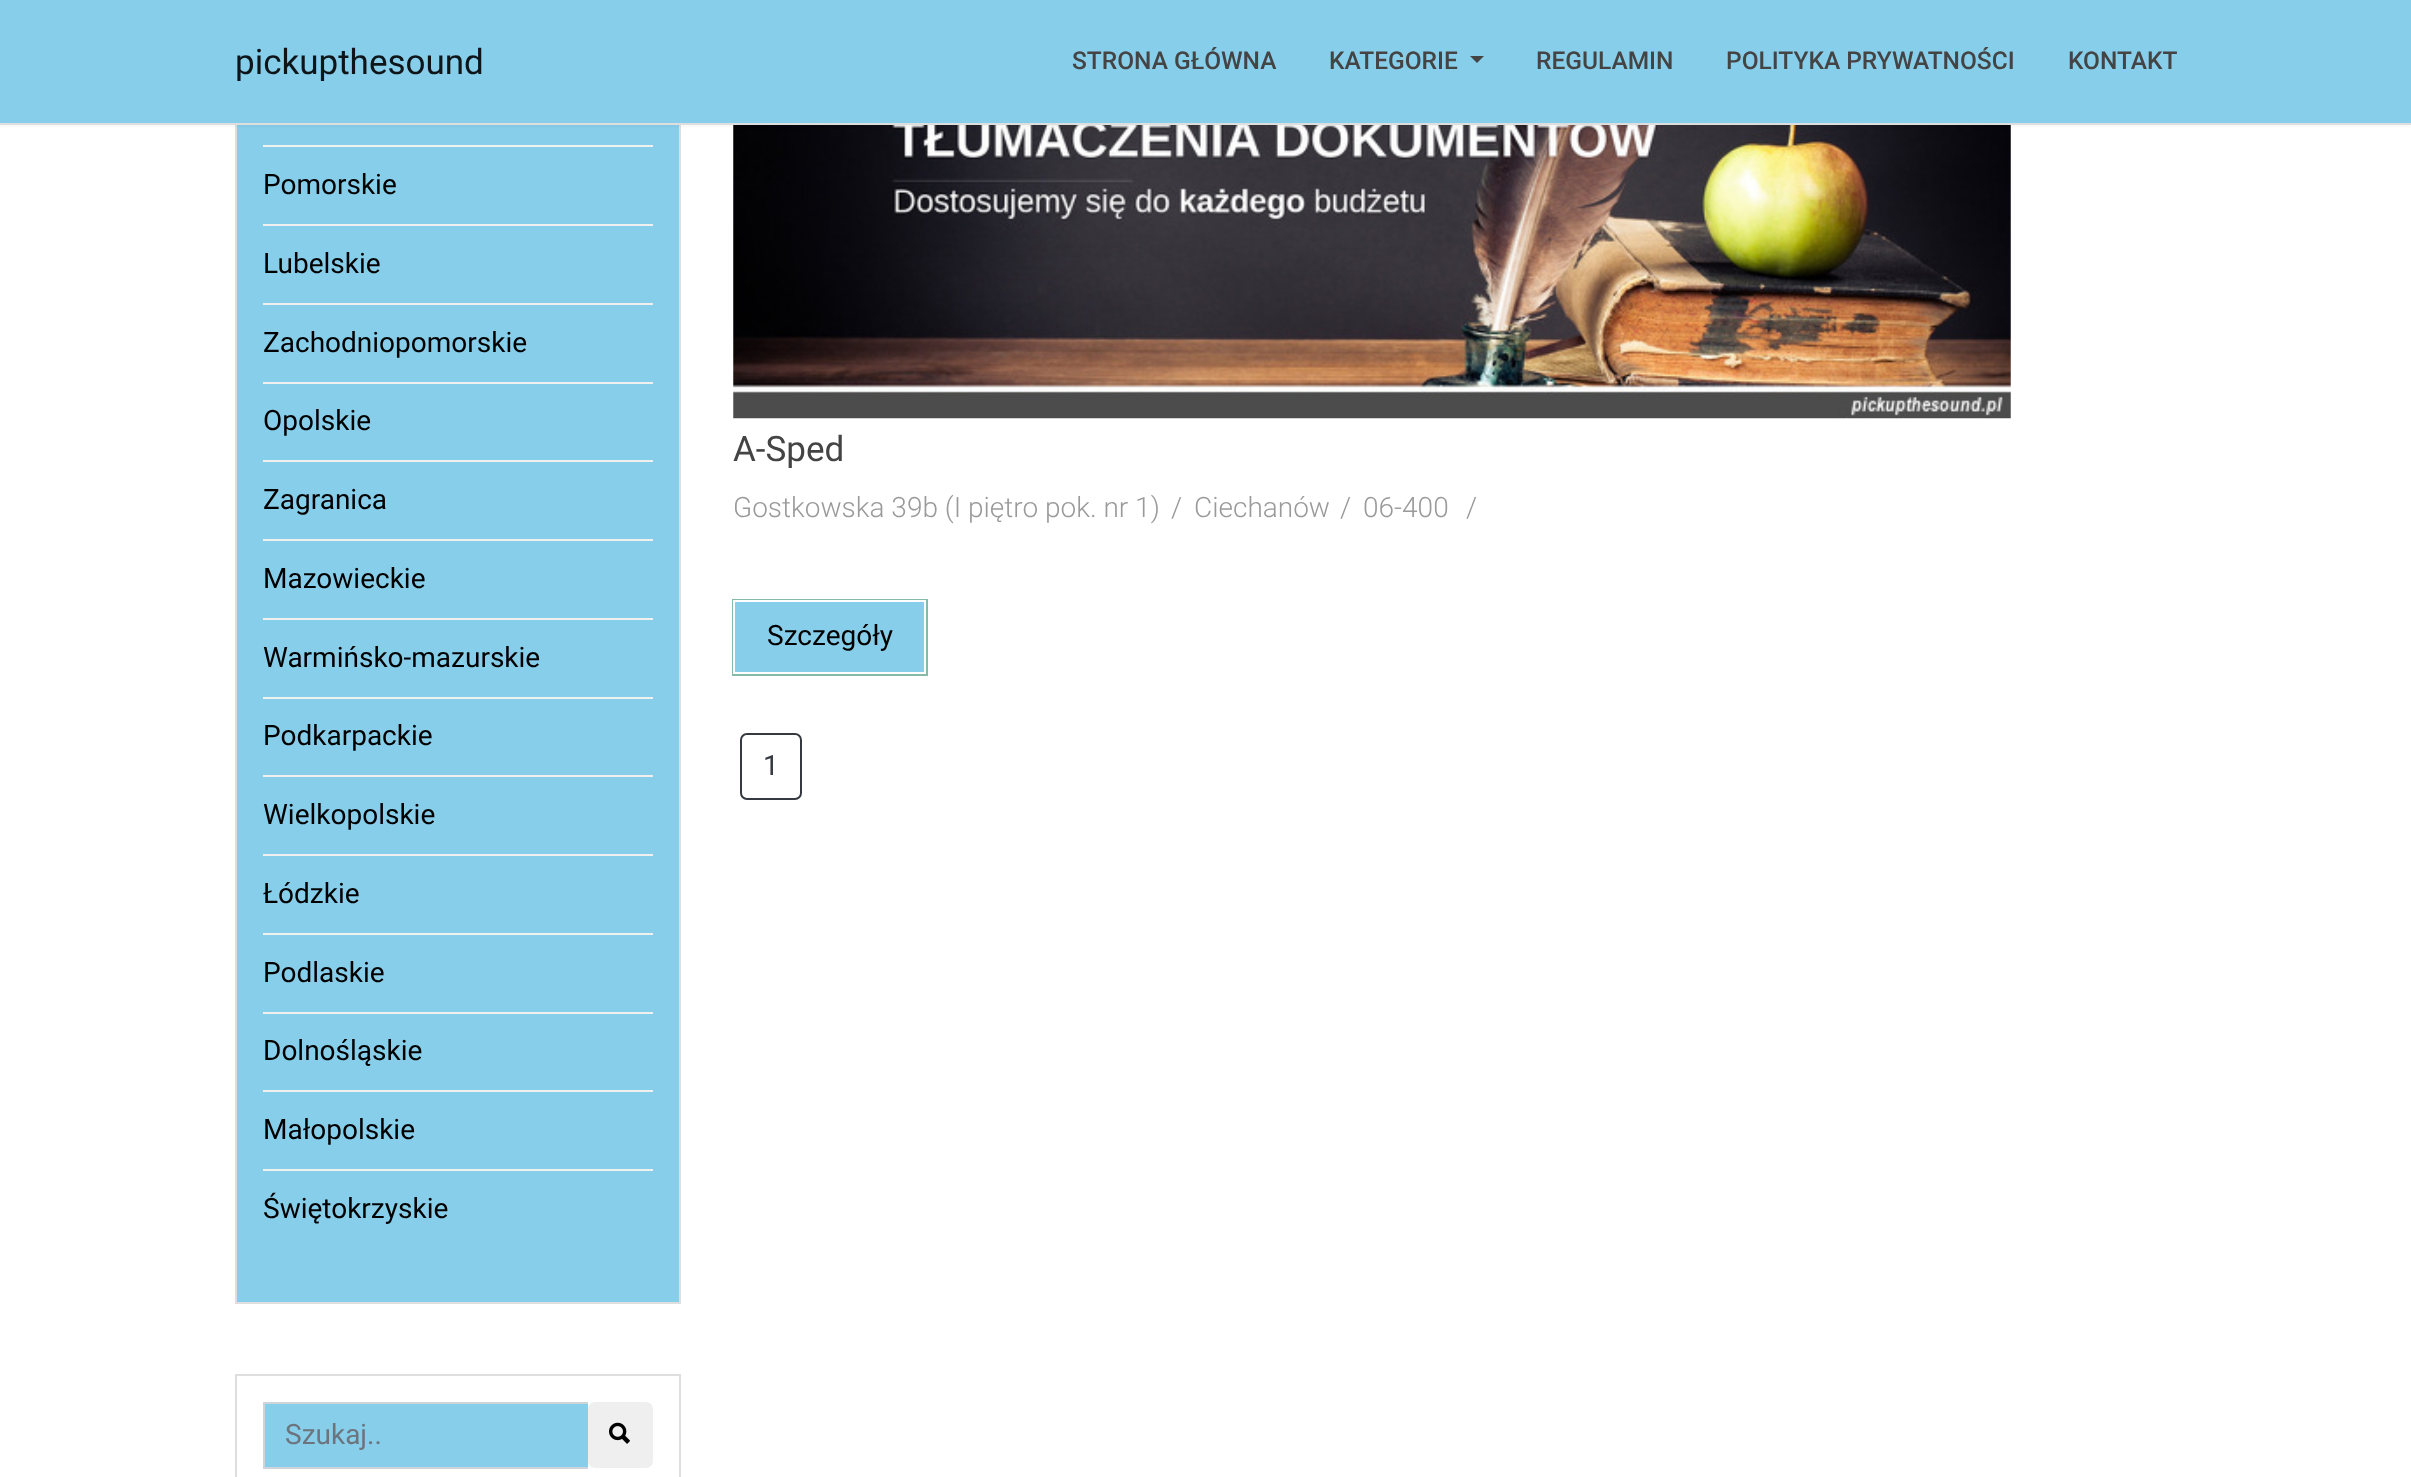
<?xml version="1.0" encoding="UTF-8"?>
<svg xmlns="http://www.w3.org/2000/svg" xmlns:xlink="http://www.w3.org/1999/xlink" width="2411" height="1477">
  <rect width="100%" height="100%" fill="#ffffff" />
  <rect x="237" y="125" width="442" height="1177" fill="#87ceeb" />
  <rect x="236" y="-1" width="444" height="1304" fill="none" stroke="#dedede" stroke-width="2" />
  <image x="733" y="125" width="1278" height="294" xlink:href="image2.png" />
  <rect width="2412" height="124" fill="#000000" fill-opacity="0.1" filter="blur(2.5px)" />
  <rect width="2411" height="123" fill="#87ceeb" />
  <rect y="123" width="2411" height="2" fill="#dedede" />
  <path d="M 1470 56 h 14 l -7 7 z" fill="#444444" />
  <rect x="263" y="145" width="390" height="2" fill="#f0f0f0" />
  <rect x="263" y="224" width="390" height="2" fill="#f0f0f0" />
  <rect x="263" y="303" width="390" height="2" fill="#f0f0f0" />
  <rect x="263" y="382" width="390" height="2" fill="#f0f0f0" />
  <rect x="263" y="460" width="390" height="2" fill="#f0f0f0" />
  <rect x="263" y="539" width="390" height="2" fill="#f0f0f0" />
  <rect x="263" y="618" width="390" height="2" fill="#f0f0f0" />
  <rect x="263" y="697" width="390" height="2" fill="#f0f0f0" />
  <rect x="263" y="775" width="390" height="2" fill="#f0f0f0" />
  <rect x="263" y="854" width="390" height="2" fill="#f0f0f0" />
  <rect x="263" y="933" width="390" height="2" fill="#f0f0f0" />
  <rect x="263" y="1012" width="390" height="2" fill="#f0f0f0" />
  <rect x="263" y="1090" width="390" height="2" fill="#f0f0f0" />
  <rect x="263" y="1169" width="390" height="2" fill="#f0f0f0" />
  <rect x="236" y="1375" width="444" height="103" fill="none" stroke="#dedede" stroke-width="2" />
  <rect x="265" y="1404" width="323" height="63" fill="#87ceeb" />
  <rect x="263" y="1402" width="325" height="2" fill="#ced4da" />
  <rect x="263" y="1467" width="325" height="2" fill="#ced4da" />
  <rect x="263" y="1402" width="2" height="66" fill="#ced4da" />
  <rect x="588" y="1402" width="65" height="66" rx="7" fill="#efefef" />
  <image x="609" y="1422" width="21" height="22" xlink:href="image1.png" />
  <rect x="733" y="600" width="194" height="75" fill="none" stroke="#85baa6" stroke-width="2" />
  <rect x="734" y="601" width="191" height="72" fill="#87ceeb" stroke="#ffffff" stroke-width="2" />
  <rect x="741" y="734" width="60" height="65" rx="6" fill="none" stroke="#343a40" stroke-width="2" />
  <text x="235" y="74" style="font-family: Roboto; font-size: 35px; fill: #0e1518">pickupthesound</text>
  <text x="1072" y="69" style="font-family: Roboto; font-size: 24.5px; font-weight: 500; fill: #444444">STRONA GŁÓWNA</text>
  <text x="1329" y="69" style="font-family: Roboto; font-size: 24.5px; font-weight: 500; fill: #444444">KATEGORIE</text>
  <text x="1536" y="69" style="font-family: Roboto; font-size: 24.5px; font-weight: 500; fill: #444444">REGULAMIN</text>
  <text x="1726" y="69" style="font-family: Roboto; font-size: 24.5px; font-weight: 500; fill: #444444">POLITYKA PRYWATNOŚCI</text>
  <text x="2068" y="69" style="font-family: Roboto; font-size: 24.5px; font-weight: 500; fill: #444444">KONTAKT</text>
  <text x="263" y="194" style="font-family: Roboto; font-size: 28px; fill: #000000">Pomorskie</text>
  <text x="263" y="273" style="font-family: Roboto; font-size: 28px; fill: #000000">Lubelskie</text>
  <text x="263" y="352" style="font-family: Roboto; font-size: 28px; fill: #000000">Zachodniopomorskie</text>
  <text x="263" y="430" style="font-family: Roboto; font-size: 28px; fill: #000000">Opolskie</text>
  <text x="263" y="509" style="font-family: Roboto; font-size: 28px; fill: #000000">Zagranica</text>
  <text x="263" y="588" style="font-family: Roboto; font-size: 28px; fill: #000000">Mazowieckie</text>
  <text x="263" y="667" style="font-family: Roboto; font-size: 28px; fill: #000000">Warmińsko-mazurskie</text>
  <text x="263" y="745" style="font-family: Roboto; font-size: 28px; fill: #000000">Podkarpackie</text>
  <text x="263" y="824" style="font-family: Roboto; font-size: 28px; fill: #000000">Wielkopolskie</text>
  <text x="263" y="903" style="font-family: Roboto; font-size: 28px; fill: #000000">Łódzkie</text>
  <text x="263" y="982" style="font-family: Roboto; font-size: 28px; fill: #000000">Podlaskie</text>
  <text x="263" y="1060" style="font-family: Roboto; font-size: 28px; fill: #000000">Dolnośląskie</text>
  <text x="263" y="1139" style="font-family: Roboto; font-size: 28px; fill: #000000">Małopolskie</text>
  <text x="263" y="1218" style="font-family: Roboto; font-size: 28px; fill: #000000">Świętokrzyskie</text>
  <text x="285" y="1444" style="font-family: Roboto; font-size: 28px; fill: #6c757d">Szukaj..</text>
  <text x="733" y="461" style="font-family: Roboto; font-size: 35px; fill: #444444">A-Sped</text>
  <text x="733" y="517" style="font-family: Roboto; font-size: 28px; font-weight: 300; fill: #9a9a9a">Gostkowska 39b (I piętro pok. nr 1)</text>
  <text x="1171" y="517" style="font-family: Roboto; font-size: 28px; font-weight: 300; fill: #9a9a9a">/</text>
  <text x="1194" y="517" style="font-family: Roboto; font-size: 28px; font-weight: 300; fill: #9a9a9a">Ciechanów</text>
  <text x="1340" y="517" style="font-family: Roboto; font-size: 28px; font-weight: 300; fill: #9a9a9a">/</text>
  <text x="1363" y="517" style="font-family: Roboto; font-size: 28px; font-weight: 300; fill: #9a9a9a">06-400</text>
  <text x="1466" y="517" style="font-family: Roboto; font-size: 28px; font-weight: 300; fill: #9a9a9a">/</text>
  <text x="767" y="645" style="font-family: Roboto; font-size: 28px; fill: #000000">Szczegóły</text>
  <text x="763" y="775" style="font-family: Roboto; font-size: 28px; fill: #343a40">1</text>
</svg>
